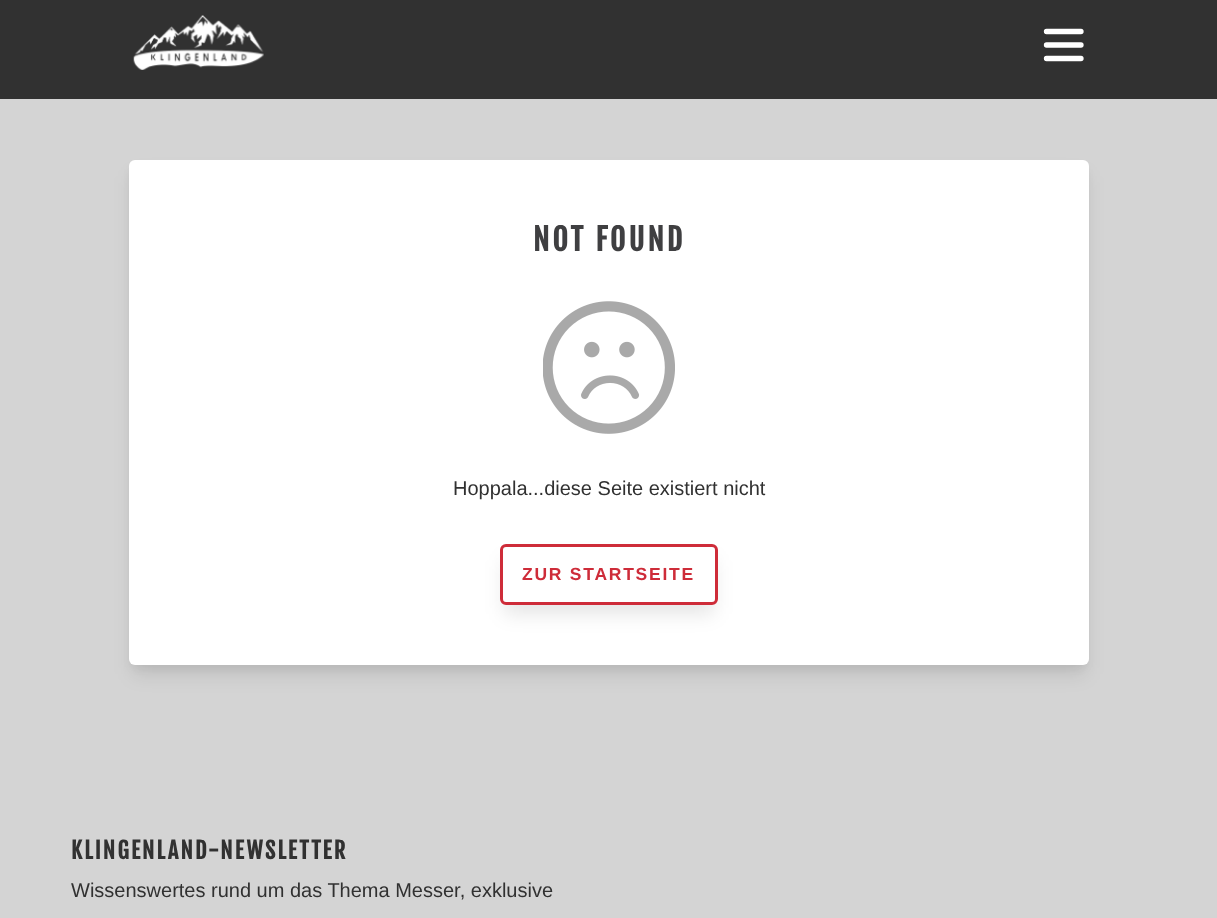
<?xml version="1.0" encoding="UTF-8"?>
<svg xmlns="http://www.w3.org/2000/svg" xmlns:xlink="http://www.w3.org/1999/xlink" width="1217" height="918">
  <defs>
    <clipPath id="clip1"><path d="M 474 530 h 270 v 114 h -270 z m 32 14 h 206 c 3.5 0 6 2.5 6 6 v 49 c 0 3.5 -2.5 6 -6 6 h -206 c -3.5 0 -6 -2.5 -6 -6 v -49 c 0 -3.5 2.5 -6 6 -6 z" clip-rule="evenodd" /></clipPath>
  </defs>
  <rect width="100%" height="100%" fill="#d4d4d4" />
  <rect width="1217" height="99" fill="#313131" />
  <image x="133" y="15" width="131" height="55" xlink:href="image1.png" />
  <path d="M 1046.5 31.5 h 34.5 m -34.5 13.5 h 34.5 m -34.5 13.5 h 34.5" fill="none" stroke="#ffffff" stroke-width="5.3" stroke-linecap="round" />
  <rect x="131" y="168" width="955" height="500" rx="4" fill="#000000" fill-opacity="0.05" filter="blur(4px)" />
  <rect x="133" y="176" width="952" height="498" rx="2.5" fill="#000000" fill-opacity="0.1" filter="blur(9.5px)" />
  <rect x="129" y="160" width="960" height="505" rx="6" fill="#ffffff" />
  <image x="543" y="301" width="132" height="133" xlink:href="image2.png" />
  <g clip-path="url(#clip1)">
    <rect x="504" y="560" width="210" height="54" rx="2.5" fill="#000000" fill-opacity="0.1" filter="blur(9.5px)" />
  </g>
  <rect x="501.5" y="545.5" width="215" height="58" rx="4.5" fill="none" stroke="#ce2c39" stroke-width="3" />
  <text x="533" y="251" style="font-family: Fjalla One; font-size: 30px; font-weight: bold; letter-spacing: 3px; fill: #3f3f41">NOT FOUND</text>
  <text x="453" y="495" style="font-family: Liberation Sans; font-size: 20px; fill: #313131">Hoppala...diese Seite existiert nicht</text>
  <text x="522" y="580" style="font-family: Liberation Sans; font-size: 17.5px; font-weight: bold; letter-spacing: 1.75px; fill: #ce2c39">ZUR STARTSEITE</text>
  <text x="71" y="859" style="font-family: Fjalla One; font-size: 22.5px; font-weight: bold; letter-spacing: 2.25px; fill: #313131">KLINGENLAND-NEWSLETTER</text>
  <text x="71" y="897" style="font-family: Liberation Sans; font-size: 20px; fill: #313131">Wissenswertes rund um das Thema Messer, exklusive</text>
</svg>
